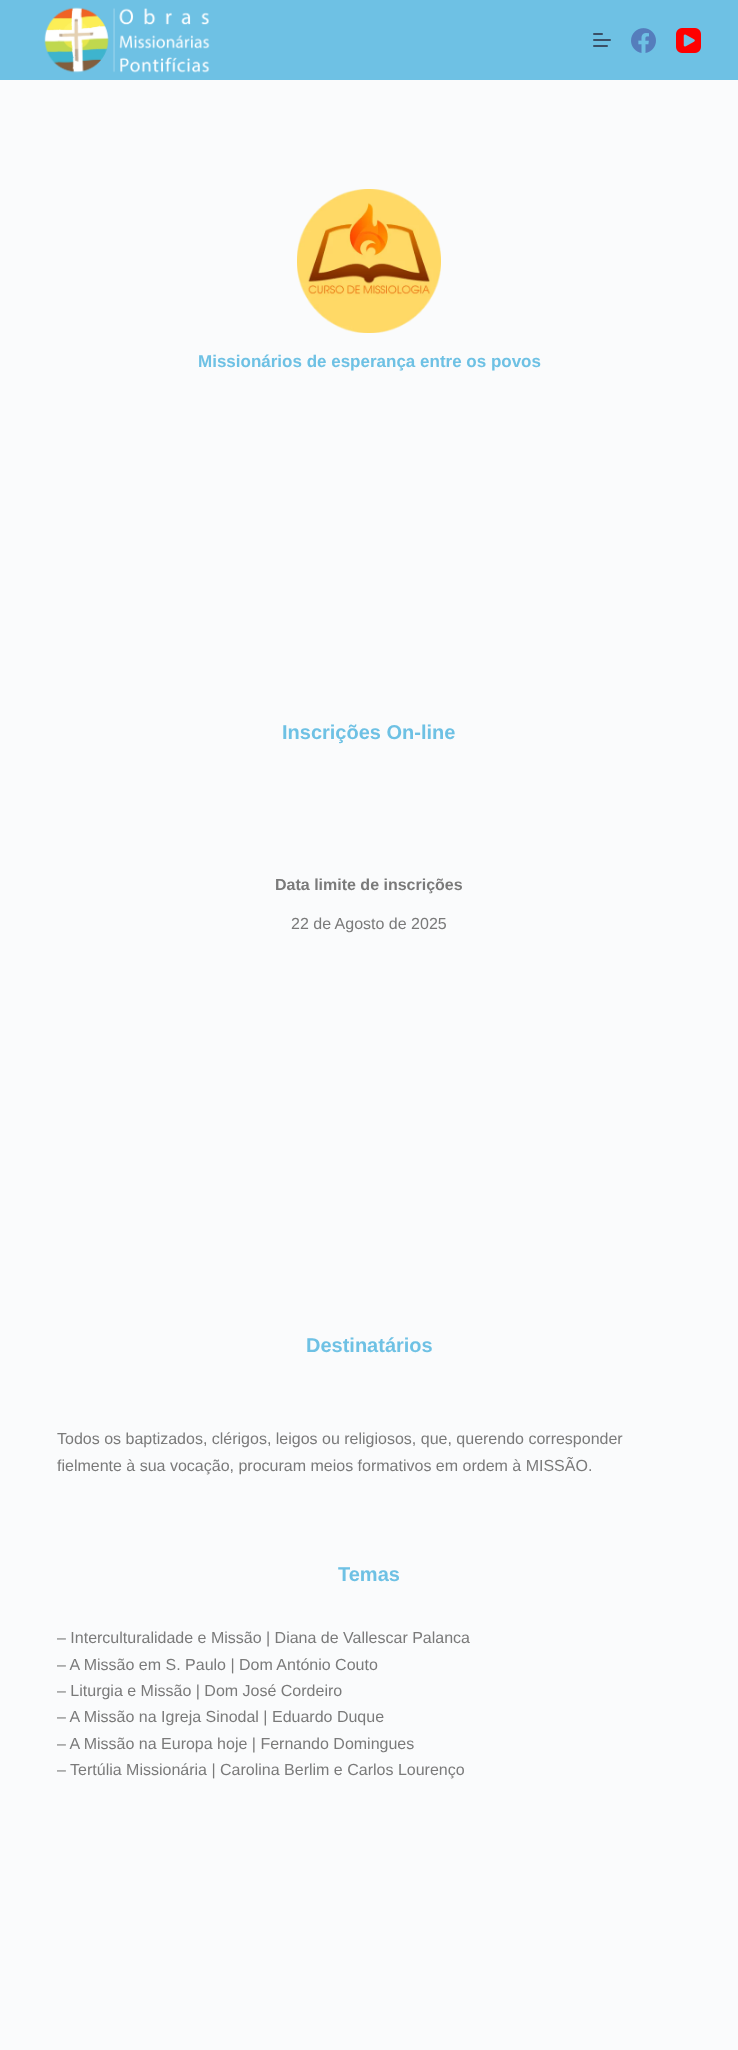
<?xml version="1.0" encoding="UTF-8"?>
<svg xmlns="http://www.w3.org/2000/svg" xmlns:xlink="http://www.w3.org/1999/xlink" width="738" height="2050">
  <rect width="100%" height="100%" fill="#fafbfc" />
  <rect width="738" height="80" fill="#6ec1e4" />
  <image x="44" y="7" width="166" height="66" xlink:href="image1.png" />
  <rect x="593" y="33" width="10" height="2" rx="1" fill="#3a4f66" />
  <rect x="593" y="39" width="18" height="2" rx="1" fill="#3a4f66" />
  <rect x="593" y="45" width="15" height="2" rx="1" fill="#3a4f66" />
  <image x="631" y="28" width="25" height="25" xlink:href="image2.png" />
  <image x="676" y="28" width="25" height="25" xlink:href="image3.png" />
  <image x="297" y="189" width="144" height="144" xlink:href="image4.png" />
  <text x="198" y="367" style="font-family: Liberation Sans; font-size: 17px; font-weight: bold; fill: #6ec1e4">Missionários de esperança entre os povos</text>
  <text x="282" y="739" style="font-family: Liberation Sans; font-size: 20px; font-weight: bold; fill: #6ec1e4">Inscrições On-line</text>
  <text x="275" y="890" style="font-family: Liberation Sans; font-size: 16px; font-weight: bold; fill: #7a7a7a">Data limite de inscrições</text>
  <text x="291" y="929" style="font-family: Liberation Sans; font-size: 16px; fill: #7a7a7a">22 de Agosto de 2025</text>
  <text x="306" y="1352" style="font-family: Liberation Sans; font-size: 20px; font-weight: bold; fill: #6ec1e4">Destinatários</text>
  <text x="57" y="1444" style="font-family: Liberation Sans; font-size: 16px; fill: #7a7a7a">Todos os baptizados, clérigos, leigos ou religiosos, que, querendo corresponder</text>
  <text x="57" y="1471" style="font-family: Liberation Sans; font-size: 16px; fill: #7a7a7a">fielmente à sua vocação, procuram meios formativos em ordem à MISSÃO.</text>
  <text x="338" y="1581" style="font-family: Liberation Sans; font-size: 20px; font-weight: bold; fill: #6ec1e4">Temas</text>
  <text x="57" y="1643" style="font-family: Liberation Sans; font-size: 16px; fill: #7a7a7a">– Interculturalidade e Missão | Diana de Vallescar Palanca</text>
  <text x="57" y="1670" style="font-family: Liberation Sans; font-size: 16px; fill: #7a7a7a">– A Missão em S. Paulo | Dom António Couto</text>
  <text x="57" y="1696" style="font-family: Liberation Sans; font-size: 16px; fill: #7a7a7a">– Liturgia e Missão | Dom José Cordeiro</text>
  <text x="57" y="1722" style="font-family: Liberation Sans; font-size: 16px; fill: #7a7a7a">– A Missão na Igreja Sinodal | Eduardo Duque</text>
  <text x="57" y="1749" style="font-family: Liberation Sans; font-size: 16px; fill: #7a7a7a">– A Missão na Europa hoje | Fernando Domingues</text>
  <text x="57" y="1775" style="font-family: Liberation Sans; font-size: 16px; fill: #7a7a7a">– Tertúlia Missionária | Carolina Berlim e Carlos Lourenço</text>
</svg>
